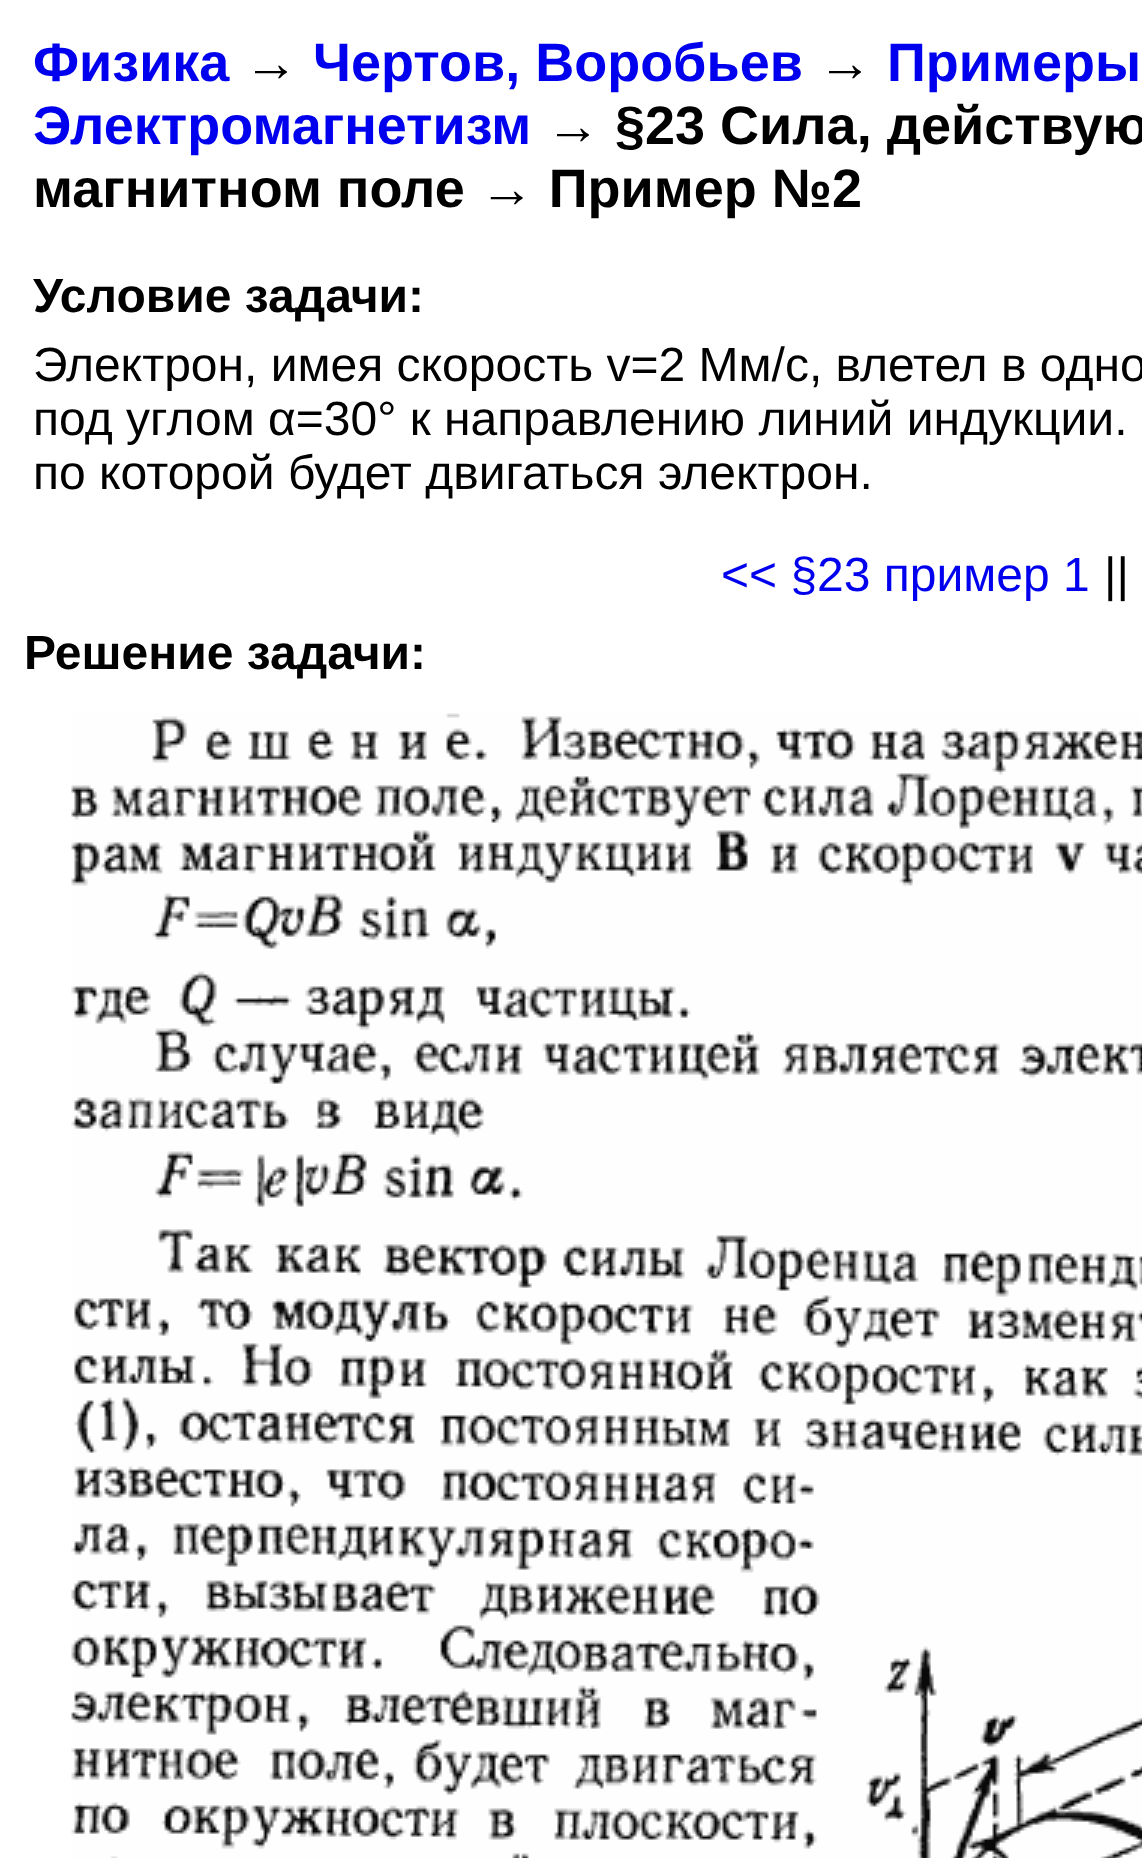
<?xml version="1.0" encoding="UTF-8"?>
<svg xmlns="http://www.w3.org/2000/svg" xmlns:xlink="http://www.w3.org/1999/xlink" width="1142" height="1858">
  <rect width="100%" height="100%" fill="#ffffff" />
  <image x="71" y="713" width="1071" height="1145" xlink:href="image1.png" />
  <text x="33" y="81" style="font-family: Liberation Sans; font-size: 54px; font-weight: bold; fill: #0000ee">Физика</text>
  <text x="244" y="81" style="font-family: Liberation Sans; font-size: 54px; font-weight: bold; fill: #000000">→</text>
  <text x="313" y="81" style="font-family: Liberation Sans; font-size: 54px; font-weight: bold; fill: #0000ee">Чертов, Воробьев</text>
  <text x="818" y="81" style="font-family: Liberation Sans; font-size: 54px; font-weight: bold; fill: #000000">→</text>
  <text x="887" y="81" style="font-family: Liberation Sans; font-size: 54px; font-weight: bold; fill: #0000ee">Примеры</text>
  <text x="33" y="144" style="font-family: Liberation Sans; font-size: 54px; font-weight: bold; fill: #0000ee">Электромагнетизм</text>
  <text x="546" y="144" style="font-family: Liberation Sans; font-size: 54px; font-weight: bold; fill: #000000">→ §23 Сила, действую</text>
  <text x="33" y="207" style="font-family: Liberation Sans; font-size: 54px; font-weight: bold; fill: #000000">магнитном поле → Пример №2</text>
  <text x="33" y="312" style="font-family: Liberation Sans; font-size: 48px; font-weight: bold; fill: #000000">Условие задачи:</text>
  <text x="33" y="381" style="font-family: Liberation Sans; font-size: 48px; fill: #000000">Электрон, имея скорость v=2 Мм/с, влетел в одно</text>
  <text x="33" y="435" style="font-family: Liberation Sans; font-size: 48px; fill: #000000">под углом α=30° к направлению линий индукции.</text>
  <text x="33" y="489" style="font-family: Liberation Sans; font-size: 48px; fill: #000000">по которой будет двигаться электрон.</text>
  <text x="721" y="591" style="font-family: Liberation Sans; font-size: 48px; fill: #0000ee">&lt;&lt; §23 пример 1</text>
  <text x="1104" y="591" style="font-family: Liberation Sans; font-size: 48px; fill: #000000">||</text>
  <text x="24" y="669" style="font-family: Liberation Sans; font-size: 48px; font-weight: bold; fill: #000000">Решение задачи:</text>
</svg>
